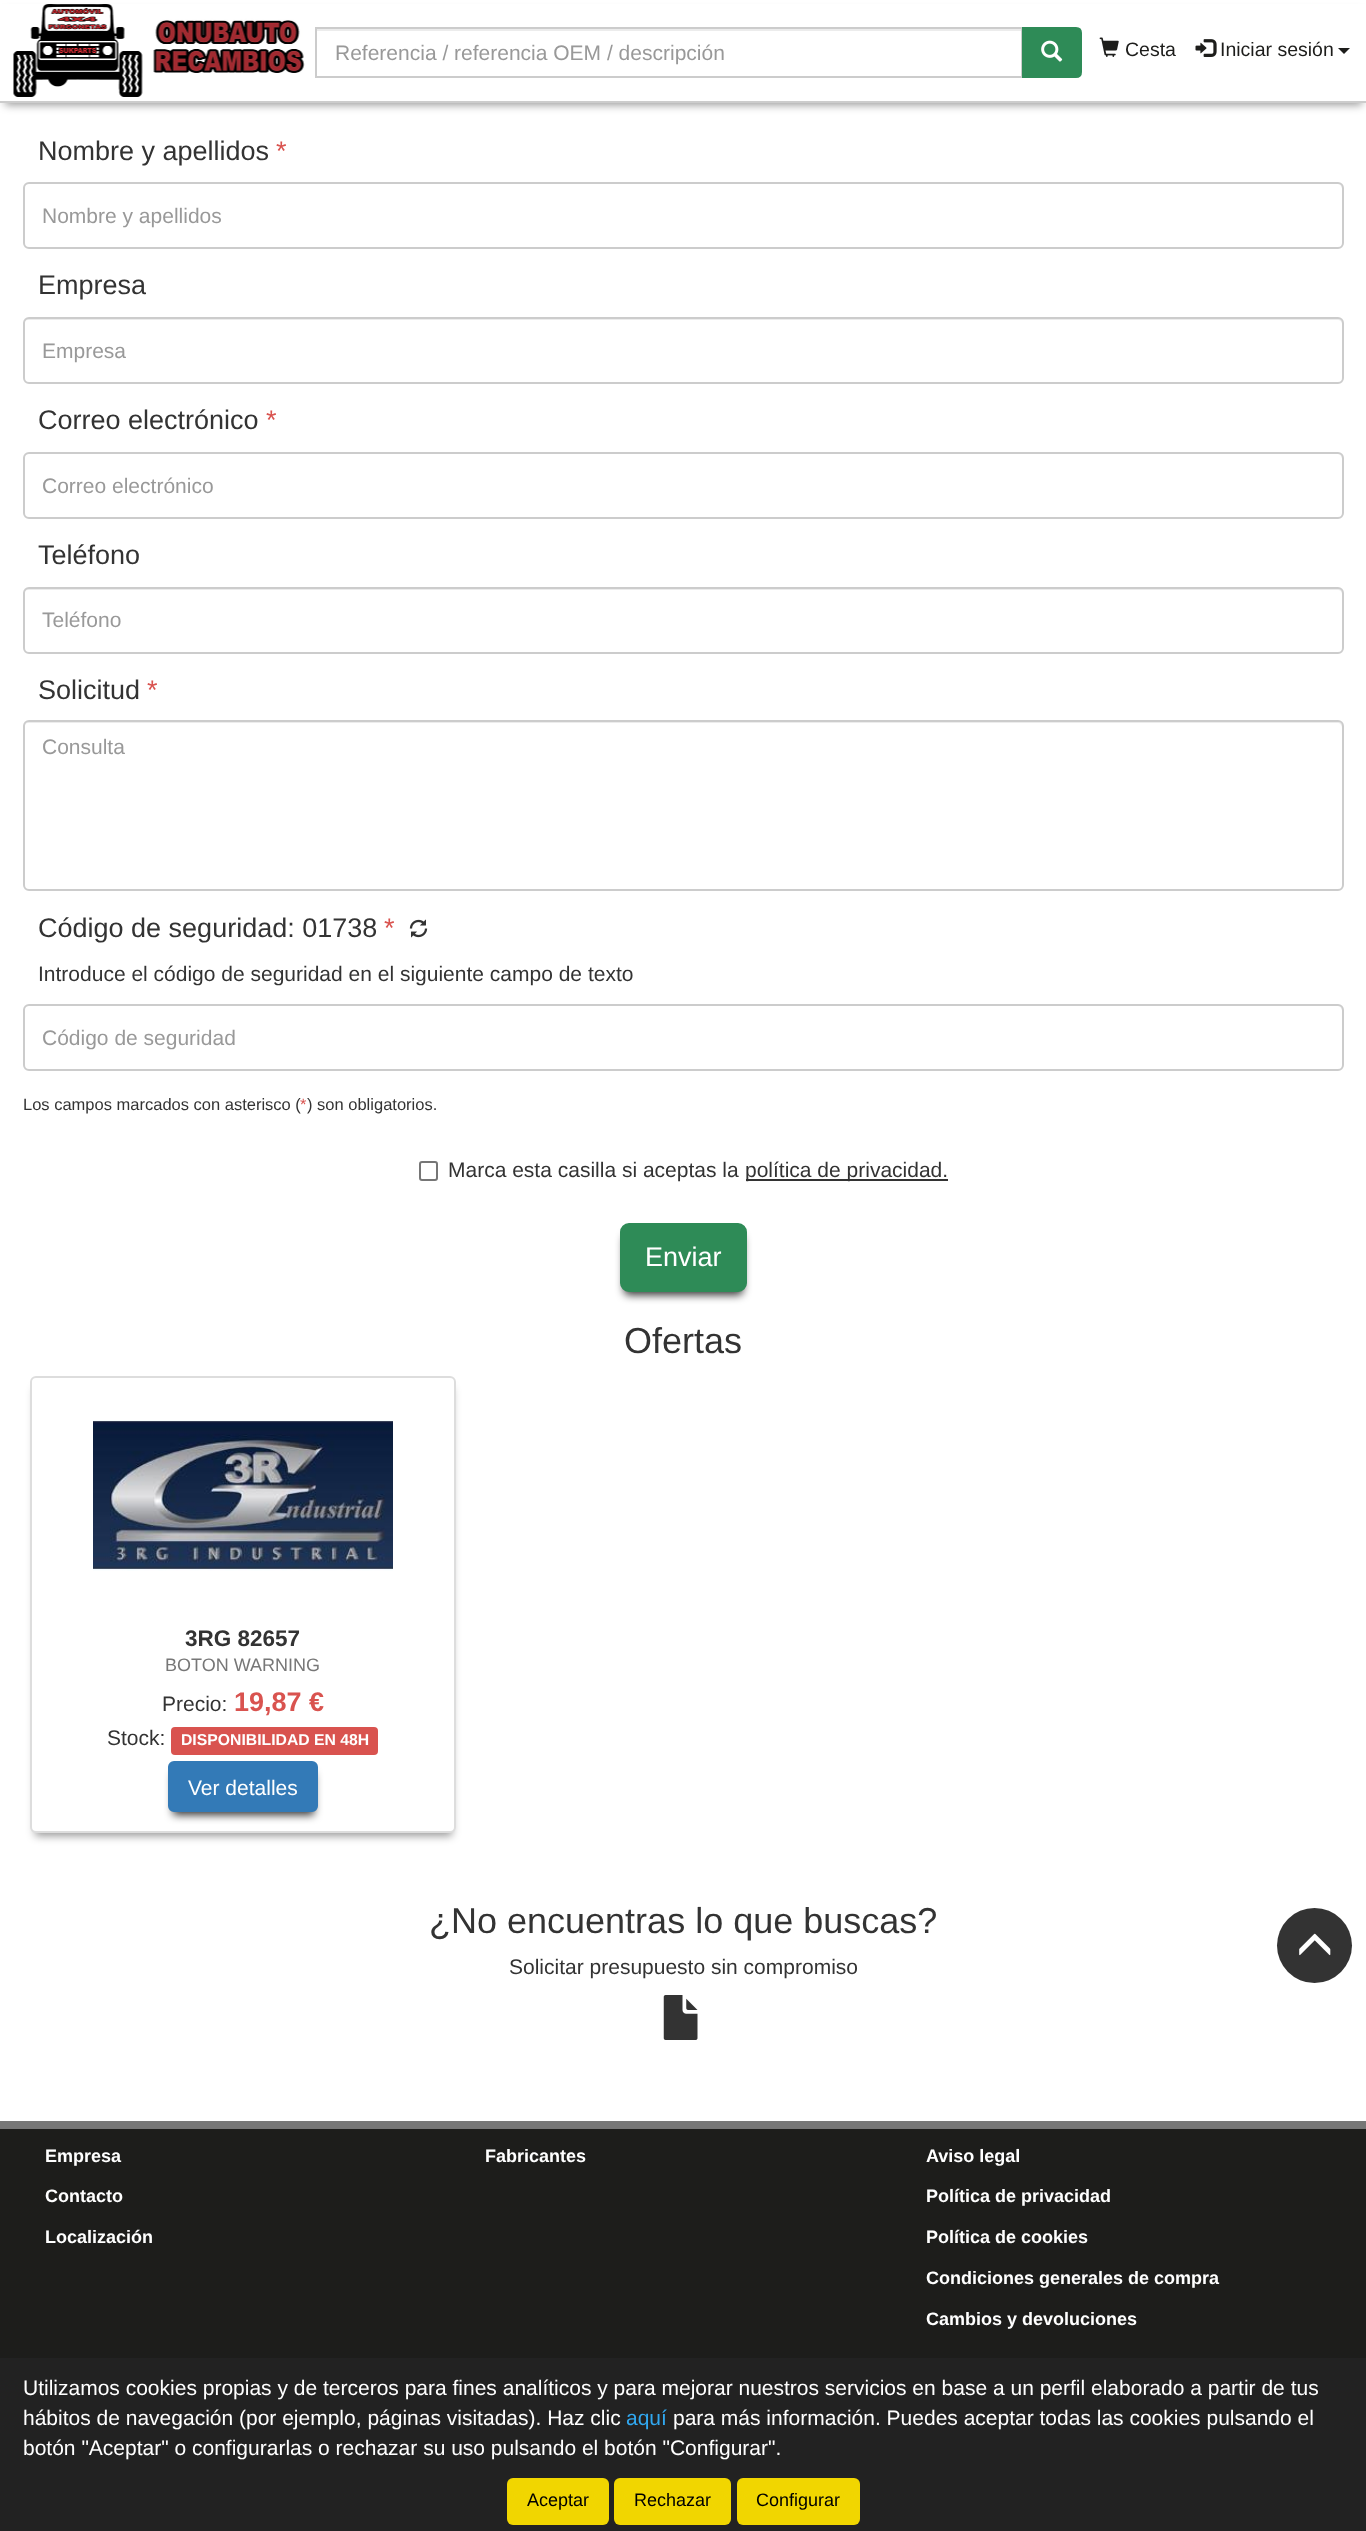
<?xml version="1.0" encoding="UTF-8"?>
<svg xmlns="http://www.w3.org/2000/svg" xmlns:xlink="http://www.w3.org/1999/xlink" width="1366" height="2531">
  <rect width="100%" height="100%" fill="#ffffff" />
  <rect x="5" y="12" width="1357" height="93" fill="#000000" fill-opacity="0.4" filter="blur(4px)" />
  <rect y="4" width="1366" height="97" fill="#ffffff" />
  <rect y="101" width="1366" height="2" fill="#cccccc" />
  <image x="13" y="4" width="292" height="93" xlink:href="image1.png" />
  <rect x="317" y="29" width="705" height="2" fill="#ececec" />
  <rect x="316" y="28" width="706" height="49" fill="none" stroke="#cccccc" stroke-width="2" />
  <path d="M 1023 28 h 53 c 3 0 5 2 5 5 v 39 c 0 3 -2 5 -5 5 h -53 z" fill="#2e8b57" stroke="#2e8b57" stroke-width="2" />
  <image x="1041" y="40" width="22" height="22" xlink:href="image2.png" />
  <image x="1099" y="37" width="20" height="20" xlink:href="image3.png" />
  <image x="1195" y="39" width="22" height="18" xlink:href="image4.png" />
  <path d="M 1338 48 h 12 l -6 6 z" fill="#1d1d1b" />
  <path d="M 28 184 h 1310 c 2 0 4 3 4 5 v 55 l -1 3 c 1 -1 2 -3 2 -4 v -55 c 0 -3 -2 -5 -5 -5 h -1309 c -3 0 -5 2 -5 5 v 1 c 0 -2 2 -5 4 -5 z" fill="#ececec" />
  <rect x="24" y="183" width="1319" height="65" rx="5" fill="none" stroke="#cccccc" stroke-width="2" />
  <path d="M 28 320 h 1310 c 2 0 4 2 4 4 v 57 c 1 -1 1 -2 1 -3 v -55 c 0 -3 -2 -5 -5 -5 h -1309 c -3 0 -5 2 -5 5 v 1 c 0 -2 2 -4 4 -4 z" fill="#ececec" />
  <rect x="24" y="318" width="1319" height="65" rx="5" fill="none" stroke="#cccccc" stroke-width="2" />
  <path d="M 28 454 h 1310 c 2 0 4 3 4 5 v 55 l -1 3 c 1 -1 2 -3 2 -4 v -55 c 0 -3 -2 -5 -5 -5 h -1309 c -3 0 -5 2 -5 5 v 1 c 0 -2 2 -5 4 -5 z" fill="#ececec" />
  <rect x="24" y="453" width="1319" height="65" rx="5" fill="none" stroke="#cccccc" stroke-width="2" />
  <path d="M 28 590 h 1310 c 2 0 4 2 4 4 v 57 c 1 -1 1 -2 1 -3 v -55 c 0 -3 -2 -5 -5 -5 h -1309 c -3 0 -5 2 -5 5 v 1 c 0 -2 2 -4 4 -4 z" fill="#ececec" />
  <rect x="24" y="588" width="1319" height="65" rx="5" fill="none" stroke="#cccccc" stroke-width="2" />
  <path d="M 28 723 h 1310 c 2 0 4 2 4 5 v 158 l -1 3 c 1 -1 2 -3 2 -4 v -158 c 0 -3 -2 -5 -5 -5 h -1309 c -3 0 -5 2 -5 5 v 1 c 0 -3 2 -5 4 -5 z" fill="#ececec" />
  <rect x="24" y="721" width="1319" height="169" rx="5" fill="none" stroke="#cccccc" stroke-width="2" />
  <image x="409" y="919" width="19" height="19" xlink:href="image5.png" />
  <path d="M 28 1006 h 1310 c 2 0 4 3 4 5 v 55 l -1 3 c 1 -1 2 -3 2 -4 v -55 c 0 -3 -2 -5 -5 -5 h -1309 c -3 0 -5 2 -5 5 v 1 c 0 -2 2 -5 4 -5 z" fill="#ececec" />
  <rect x="24" y="1005" width="1319" height="65" rx="5" fill="none" stroke="#cccccc" stroke-width="2" />
  <rect x="420" y="1162" width="17" height="18" rx="2" fill="none" stroke="#767676" stroke-width="2" />
  <rect x="746" y="1179" width="202" height="2" fill="#333333" />
  <rect x="624" y="1235" width="119" height="60" rx="5" fill="#000000" fill-opacity="0.8" filter="blur(4px)" />
  <rect x="621" y="1224" width="125" height="67" rx="8" fill="#2e8b57" stroke="#2e8b57" stroke-width="2" />
  <rect x="35" y="1388" width="417" height="448" rx="1.5" fill="#000000" fill-opacity="0.4" filter="blur(4px)" />
  <rect x="31" y="1377" width="424" height="455" rx="5" fill="#ffffff" stroke="#dddddd" stroke-width="2" />
  <image x="93" y="1420" width="300" height="151" xlink:href="image6.png" />
  <rect x="171" y="1727" width="207" height="28" rx="4" fill="#d9534f" />
  <rect x="173" y="1773" width="141" height="42" rx="1.5" fill="#000000" fill-opacity="0.8" filter="blur(4px)" />
  <rect x="169" y="1762" width="148" height="49" rx="5" fill="#337ab7" stroke="#337ab7" stroke-width="2" />
  <image x="663" y="1995" width="35" height="45" xlink:href="image7.png" />
  <circle cx="1314.5" cy="1945.5" r="37.5" fill="#333333" />
  <image x="1299" y="1933" width="32" height="23" xlink:href="image8.png" />
  <rect y="2129" width="1366" height="229" fill="#1d1d1b" />
  <rect y="2121" width="1366" height="8" fill="#777777" />
  <rect y="2358" width="1366" height="173" fill="#222222" />
  <rect x="507" y="2478" width="102" height="47" rx="6" fill="#f1d600" />
  <rect x="614" y="2478" width="117" height="47" rx="6" fill="#f1d600" />
  <rect x="737" y="2478" width="123" height="47" rx="6" fill="#f1d600" />
  <text x="335" y="60" style="font-family: Liberation Sans; font-size: 21px; fill: #999999">Referencia / referencia OEM / descripción</text>
  <text x="1125" y="56" style="font-family: Liberation Sans; font-size: 19.5px; fill: #1d1d1b">Cesta</text>
  <text x="1220" y="56" style="font-family: Liberation Sans; font-size: 19.5px; fill: #1d1d1b">Iniciar sesión</text>
  <text x="38" y="160" style="font-family: Liberation Sans; font-size: 27px; fill: #333333">Nombre y apellidos</text>
  <text x="276" y="160" style="font-family: Liberation Sans; font-size: 27px; fill: #d9534f">*</text>
  <text x="42" y="223" style="font-family: Liberation Sans; font-size: 21px; fill: #999999">Nombre y apellidos</text>
  <text x="38" y="294" style="font-family: Liberation Sans; font-size: 27px; fill: #333333">Empresa</text>
  <text x="42" y="358" style="font-family: Liberation Sans; font-size: 21px; fill: #999999">Empresa</text>
  <text x="38" y="429" style="font-family: Liberation Sans; font-size: 27px; fill: #333333">Correo electrónico</text>
  <text x="266" y="429" style="font-family: Liberation Sans; font-size: 27px; fill: #d9534f">*</text>
  <text x="42" y="493" style="font-family: Liberation Sans; font-size: 21px; fill: #999999">Correo electrónico</text>
  <text x="38" y="564" style="font-family: Liberation Sans; font-size: 27px; fill: #333333">Teléfono</text>
  <text x="42" y="627" style="font-family: Liberation Sans; font-size: 21px; fill: #999999">Teléfono</text>
  <text x="38" y="699" style="font-family: Liberation Sans; font-size: 27px; fill: #333333">Solicitud</text>
  <text x="147" y="699" style="font-family: Liberation Sans; font-size: 27px; fill: #d9534f">*</text>
  <text x="42" y="754" style="font-family: Liberation Sans; font-size: 21px; fill: #999999">Consulta</text>
  <text x="38" y="937" style="font-family: Liberation Sans; font-size: 27px; fill: #333333">Código de seguridad: 01738</text>
  <text x="384" y="937" style="font-family: Liberation Sans; font-size: 27px; fill: #d9534f">*</text>
  <text x="38" y="981" style="font-family: Liberation Sans; font-size: 21px; fill: #333333">Introduce el código de seguridad en el siguiente campo de texto</text>
  <text x="42" y="1045" style="font-family: Liberation Sans; font-size: 21px; fill: #999999">Código de seguridad</text>
  <text x="23" y="1110" style="font-family: Liberation Sans; font-size: 16.5px; fill: #333333">Los campos marcados con asterisco (</text>
  <text x="300" y="1110" style="font-family: Liberation Sans; font-size: 16.5px; fill: #d9534f">*</text>
  <text x="307" y="1110" style="font-family: Liberation Sans; font-size: 16.5px; fill: #333333">) son obligatorios.</text>
  <text x="448" y="1177" style="font-family: Liberation Sans; font-size: 21px; fill: #333333">Marca esta casilla si aceptas la</text>
  <text x="745" y="1177" style="font-family: Liberation Sans; font-size: 21px; fill: #333333">política de privacidad.</text>
  <text x="645" y="1266" style="font-family: Liberation Sans; font-size: 27px; fill: #ffffff">Enviar</text>
  <text x="624" y="1353" style="font-family: Liberation Sans; font-size: 36px; fill: #333333">Ofertas</text>
  <text x="185" y="1646" style="font-family: Liberation Sans; font-size: 22.5px; font-weight: bold; fill: #333333">3RG 82657</text>
  <text x="165" y="1671" style="font-family: Liberation Sans; font-size: 18px; fill: #777777">BOTON WARNING</text>
  <text x="162" y="1711" style="font-family: Liberation Sans; font-size: 21px; fill: #333333">Precio:</text>
  <text x="234" y="1711" style="font-family: Liberation Sans; font-size: 27px; font-weight: bold; fill: #d9534f">19,87 €</text>
  <text x="107" y="1745" style="font-family: Liberation Sans; font-size: 21px; fill: #333333">Stock:</text>
  <text x="181" y="1745" style="font-family: Liberation Sans; font-size: 15.75px; font-weight: bold; fill: #ffffff">DISPONIBILIDAD EN 48H</text>
  <text x="188" y="1795" style="font-family: Liberation Sans; font-size: 21px; fill: #ffffff">Ver detalles</text>
  <text x="429" y="1933" style="font-family: Liberation Sans; font-size: 36px; fill: #333333">¿No encuentras lo que buscas?</text>
  <text x="509" y="1974" style="font-family: Liberation Sans; font-size: 21px; fill: #333333">Solicitar presupuesto sin compromiso</text>
  <text x="45" y="2162" style="font-family: Liberation Sans; font-size: 18px; font-weight: bold; fill: #ffffff">Empresa</text>
  <text x="45" y="2202" style="font-family: Liberation Sans; font-size: 18px; font-weight: bold; fill: #ffffff">Contacto</text>
  <text x="45" y="2243" style="font-family: Liberation Sans; font-size: 18px; font-weight: bold; fill: #ffffff">Localización</text>
  <text x="485" y="2162" style="font-family: Liberation Sans; font-size: 18px; font-weight: bold; fill: #ffffff">Fabricantes</text>
  <text x="926" y="2162" style="font-family: Liberation Sans; font-size: 18px; font-weight: bold; fill: #ffffff">Aviso legal</text>
  <text x="926" y="2202" style="font-family: Liberation Sans; font-size: 18px; font-weight: bold; fill: #ffffff">Política de privacidad</text>
  <text x="926" y="2243" style="font-family: Liberation Sans; font-size: 18px; font-weight: bold; fill: #ffffff">Política de cookies</text>
  <text x="926" y="2284" style="font-family: Liberation Sans; font-size: 18px; font-weight: bold; fill: #ffffff">Condiciones generales de compra</text>
  <text x="926" y="2325" style="font-family: Liberation Sans; font-size: 18px; font-weight: bold; fill: #ffffff">Cambios y devoluciones</text>
  <text x="23" y="2395" style="font-family: Liberation Sans; font-size: 21px; fill: #ffffff">Utilizamos cookies propias y de terceros para fines analíticos y para mejorar nuestros servicios en base a un perfil elaborado a partir de tus</text>
  <text x="23" y="2425" style="font-family: Liberation Sans; font-size: 21px; fill: #ffffff">hábitos de navegación (por ejemplo, páginas visitadas). Haz clic</text>
  <text x="626" y="2425" style="font-family: Liberation Sans; font-size: 21px; fill: #31a8f0">aquí</text>
  <text x="673" y="2425" style="font-family: Liberation Sans; font-size: 21px; fill: #ffffff">para más información. Puedes aceptar todas las cookies pulsando el</text>
  <text x="23" y="2455" style="font-family: Liberation Sans; font-size: 21px; fill: #ffffff">botón "Aceptar" o configurarlas o rechazar su uso pulsando el botón "Configurar".</text>
  <text x="527" y="2506" style="font-family: Liberation Sans; font-size: 18px; fill: #000000">Aceptar</text>
  <text x="634" y="2506" style="font-family: Liberation Sans; font-size: 18px; fill: #000000">Rechazar</text>
  <text x="756" y="2506" style="font-family: Liberation Sans; font-size: 18px; fill: #000000">Configurar</text>
</svg>
